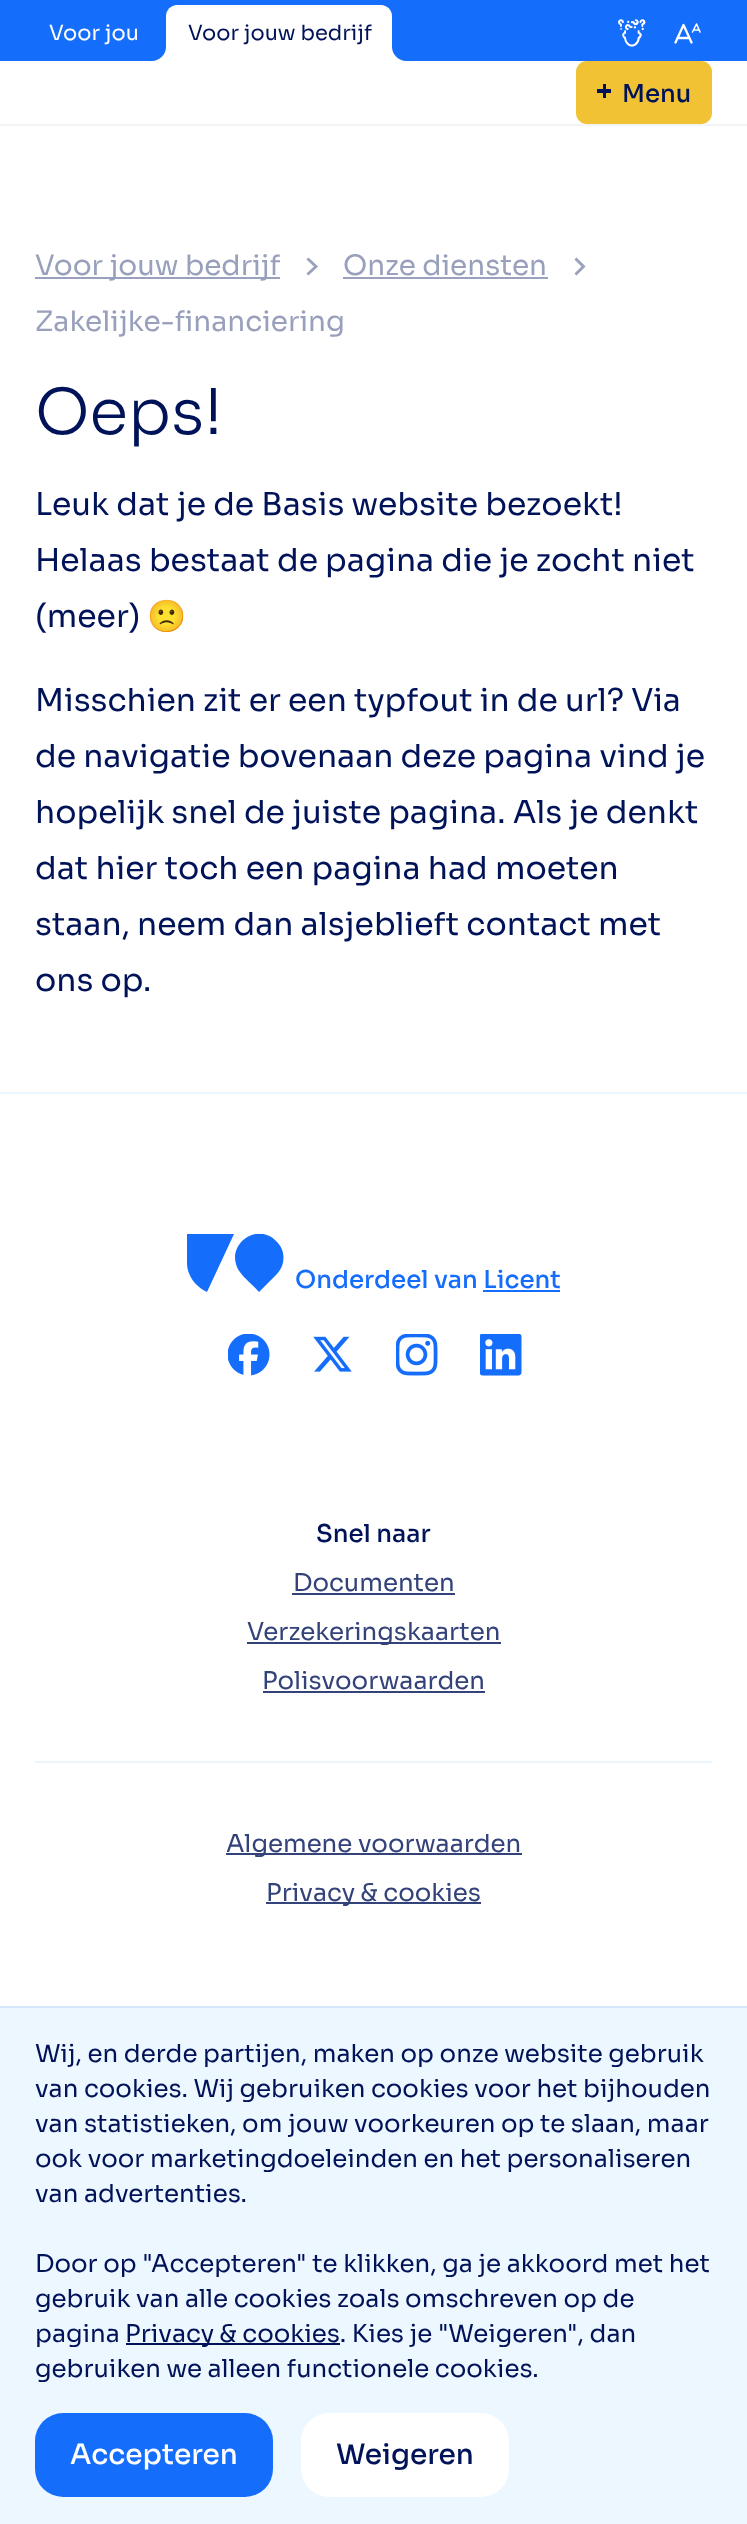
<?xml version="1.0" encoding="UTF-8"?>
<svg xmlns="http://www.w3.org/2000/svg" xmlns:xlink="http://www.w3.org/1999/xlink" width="747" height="2524">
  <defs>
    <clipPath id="clip1"><rect x="187" y="1234" width="98" height="58" /></clipPath>
  </defs>
  <rect width="100%" height="100%" fill="#ffffff" />
  <rect width="747" height="61" fill="#156dfb" />
  <rect y="124" width="747" height="2" fill="#f3f4f6" />
  <path d="M 177 5 h 204 c 6 0 11 5 11 11 v 45 h -226 v -45 c 0 -6 5 -11 11 -11 z" fill="#ffffff" />
  <rect x="152" y="47" width="14" height="14" fill="#ffffff" />
  <rect x="392" y="47" width="14" height="14" fill="#ffffff" />
  <path d="M 152 47 h 14 c 0 7.5 -6.5 14 -14 14 z" fill="#156dfb" />
  <path d="M 392 47 h 14 v 14 c -7.5 0 -14 -6.5 -14 -14 z" fill="#156dfb" />
  <image x="618" y="19" width="28" height="28" xlink:href="image1.png" />
  <path d="M 675.5 42.5 l 8 -17.5 l 8 17.5 m -14 -4.5 h 12" fill="none" stroke="#ffffff" stroke-width="2.3" stroke-linecap="round" stroke-linejoin="round" />
  <path d="M 692.5 32 l 4 -8 l 3.5 8 m -6.5 -2 h 5.5" fill="none" stroke="#ffffff" stroke-width="1.6" stroke-linecap="round" stroke-linejoin="round" />
  <rect x="576" y="61" width="136" height="63" rx="11" fill="#f1c233" />
  <rect x="597" y="89" width="14" height="4" fill="#001358" />
  <rect x="603" y="84" width="3" height="14" fill="#001358" />
  <rect x="35" y="277" width="245" height="2" fill="#99a1bc" />
  <path d="M 308.5 259.5 l 7.5 7 l -7.5 7" fill="none" stroke="#99a1bc" stroke-width="2.9" stroke-linecap="square" />
  <rect x="343" y="277" width="205" height="2" fill="#99a1bc" />
  <path d="M 576.5 259.5 l 7 7 l -7 7" fill="none" stroke="#99a1bc" stroke-width="2.9" stroke-linecap="square" />
  <rect y="1092" width="747" height="2" fill="#ebf6ff" />
  <path d="M 207 1292 l 27 -58 h -47 v 29 c 0 13 9 24 20 29 z" fill="#156dfb" />
  <g clip-path="url(#clip1)">
    <path d="M 276 1241 c -18 -19 -49 2 -39 26 c 3 8 16 18 22 25 l 17 -17 c 10 -10 10 -25 0 -34 z" fill="#156dfb" />
  </g>
  <rect x="483" y="1290" width="77" height="2" fill="#156dfb" />
  <image x="228" y="1334" width="42" height="42" xlink:href="image2.png" />
  <image x="313" y="1336" width="39" height="36" xlink:href="image3.png" />
  <image x="396" y="1334" width="42" height="42" xlink:href="image4.png" />
  <image x="480" y="1334" width="42" height="42" xlink:href="image5.png" />
  <rect x="292" y="1593" width="163" height="2" fill="#334279" />
  <rect x="247" y="1642" width="254" height="2" fill="#334279" />
  <rect x="263" y="1691" width="222" height="2" fill="#334279" />
  <rect x="35" y="1761" width="677" height="2" fill="#ebf6ff" />
  <rect x="226" y="1853" width="296" height="2" fill="#334279" />
  <rect x="266" y="1902" width="215" height="2" fill="#334279" />
  <rect y="2008" width="747" height="516" fill="#edf7ff" />
  <rect y="2006" width="747" height="2" fill="#d5e7fc" />
  <rect x="126" y="2343" width="214" height="2" fill="#001358" />
  <rect x="35" y="2413" width="238" height="84" rx="28" fill="#156dfb" />
  <rect x="301" y="2413" width="208" height="84" rx="28" fill="#ffffff" />
  <text x="49" y="40" style="font-family: Sora; font-size: 21px; fill: #ffffff">Voor jou</text>
  <text x="188" y="40" style="font-family: Sora; font-size: 21px; fill: #001358">Voor jouw bedrijf</text>
  <text x="622" y="102" style="font-family: Sora; font-size: 24.5px; font-weight: 500; fill: #001358">Menu</text>
  <text x="35" y="275" style="font-family: Sora; font-size: 28px; fill: #98a0bc">Voor jouw bedrijf</text>
  <text x="343" y="275" style="font-family: Sora; font-size: 28px; fill: #98a0bc">Onze diensten</text>
  <text x="35" y="331" style="font-family: Sora; font-size: 28px; fill: #98a0bc">Zakelijke-financiering</text>
  <text x="35" y="434" style="font-family: Sora; font-size: 63px; font-weight: 300; fill: #001358">Oeps!</text>
  <text x="35" y="515" style="font-family: Sora; font-size: 31.5px; fill: #001358">Leuk dat je de Basis website bezoekt!</text>
  <text x="35" y="571" style="font-family: Sora; font-size: 31.5px; fill: #001358">Helaas bestaat de pagina die je zocht niet</text>
  <text x="35" y="627" style="font-family: Sora; font-size: 31.5px; fill: #001358">(meer)</text>
  <text x="147" y="627" style="font-family: Noto Color Emoji; font-size: 31.5px; fill: #001358">🙁</text>
  <text x="35" y="711" style="font-family: Sora; font-size: 31.5px; fill: #001358">Misschien zit er een typfout in de url? Via</text>
  <text x="35" y="767" style="font-family: Sora; font-size: 31.5px; fill: #001358">de navigatie bovenaan deze pagina vind je</text>
  <text x="35" y="823" style="font-family: Sora; font-size: 31.5px; fill: #001358">hopelijk snel de juiste pagina. Als je denkt</text>
  <text x="35" y="879" style="font-family: Sora; font-size: 31.5px; fill: #001358">dat hier toch een pagina had moeten</text>
  <text x="35" y="935" style="font-family: Sora; font-size: 31.5px; fill: #001358">staan, neem dan alsjeblieft contact met</text>
  <text x="35" y="991" style="font-family: Sora; font-size: 31.5px; fill: #001358">ons op.</text>
  <text x="295" y="1288" style="font-family: Sora; font-size: 24.5px; font-weight: 500; fill: #156dfb">Onderdeel van Licent</text>
  <text x="316" y="1542" style="font-family: Sora; font-size: 24.5px; font-weight: 500; fill: #001358">Snel naar</text>
  <text x="293" y="1591" style="font-family: Sora; font-size: 24.5px; fill: #334279">Documenten</text>
  <text x="247" y="1640" style="font-family: Sora; font-size: 24.5px; fill: #334279">Verzekeringskaarten</text>
  <text x="262" y="1689" style="font-family: Sora; font-size: 24.5px; fill: #334279">Polisvoorwaarden</text>
  <text x="226" y="1852" style="font-family: Sora; font-size: 24.5px; fill: #334279">Algemene voorwaarden</text>
  <text x="266" y="1901" style="font-family: Sora; font-size: 24.5px; fill: #334279">Privacy &amp; cookies</text>
  <text x="35" y="2062" style="font-family: Sora; font-size: 24.5px; fill: #001358">Wij, en derde partijen, maken op onze website gebruik</text>
  <text x="35" y="2097" style="font-family: Sora; font-size: 24.5px; fill: #001358">van cookies. Wij gebruiken cookies voor het bijhouden</text>
  <text x="35" y="2132" style="font-family: Sora; font-size: 24.5px; fill: #001358">van statistieken, om jouw voorkeuren op te slaan, maar</text>
  <text x="35" y="2167" style="font-family: Sora; font-size: 24.5px; fill: #001358">ook voor marketingdoeleinden en het personaliseren</text>
  <text x="35" y="2202" style="font-family: Sora; font-size: 24.5px; fill: #001358">van advertenties.</text>
  <text x="35" y="2272" style="font-family: Sora; font-size: 24.5px; fill: #001358">Door op "Accepteren" te klikken, ga je akkoord met het</text>
  <text x="35" y="2307" style="font-family: Sora; font-size: 24.5px; fill: #001358">gebruik van alle cookies zoals omschreven op de</text>
  <text x="35" y="2342" style="font-family: Sora; font-size: 24.5px; fill: #001358">pagina</text>
  <text x="125" y="2342" style="font-family: Sora; font-size: 24.5px; fill: #001358">Privacy &amp; cookies. Kies je "Weigeren", dan</text>
  <text x="35" y="2377" style="font-family: Sora; font-size: 24.5px; fill: #001358">gebruiken we alleen functionele cookies.</text>
  <text x="70" y="2464" style="font-family: Sora; font-size: 28px; font-weight: 500; fill: #ffffff">Accepteren</text>
  <text x="336" y="2464" style="font-family: Sora; font-size: 28px; font-weight: 500; fill: #001358">Weigeren</text>
</svg>
